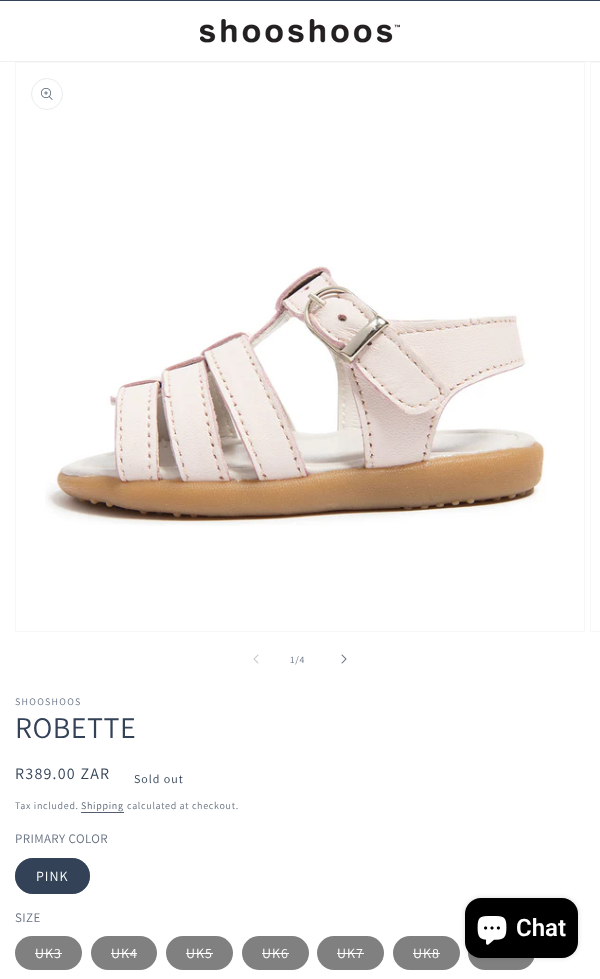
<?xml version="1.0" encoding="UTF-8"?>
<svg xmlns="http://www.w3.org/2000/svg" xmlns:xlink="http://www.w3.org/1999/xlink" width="600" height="979">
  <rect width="100%" height="100%" fill="#ffffff" />
  <rect width="600" height="1" fill="#354459" />
  <rect y="61" width="600" height="1" fill="#eff0f2" />
  <image x="200" y="19" width="200" height="24" xlink:href="image1.png" />
  <rect x="15.5" y="62.5" width="569" height="569" fill="none" stroke="#f7f7f8" />
  <circle cx="47" cy="94" r="15.5" fill="none" stroke="#ebecee" />
  <image x="41" y="88" width="12" height="12" xlink:href="image2.png" />
  <image x="45" y="266" width="501" height="260" xlink:href="image3.png" />
  <rect x="590.5" y="62.5" width="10" height="569" fill="none" stroke="#f7f7f8" />
  <image x="253" y="654" width="6" height="10" xlink:href="image4.png" />
  <image x="341" y="654" width="6" height="10" xlink:href="image5.png" />
  <rect x="81" y="812" width="43" height="1" fill="#525e70" />
  <rect x="15" y="858" width="75" height="36" rx="18" fill="#334257" />
  <rect x="15.5" y="858.5" width="74" height="35" rx="17.5" fill="none" stroke="#334257" stroke-opacity="0.55" />
  <rect x="15" y="936" width="67" height="34" rx="17" fill="#808080" />
  <rect x="35" y="953" width="27" height="1" fill="#ffffff" />
  <rect x="91" y="936" width="66" height="34" rx="17" fill="#808080" />
  <rect x="111" y="953" width="26" height="1" fill="#ffffff" />
  <rect x="166" y="936" width="67" height="34" rx="17" fill="#808080" />
  <rect x="186" y="953" width="27" height="1" fill="#ffffff" />
  <rect x="242" y="936" width="67" height="34" rx="17" fill="#808080" />
  <rect x="262" y="953" width="27" height="1" fill="#ffffff" />
  <rect x="317" y="936" width="67" height="34" rx="17" fill="#808080" />
  <rect x="337" y="953" width="27" height="1" fill="#ffffff" />
  <rect x="393" y="936" width="67" height="34" rx="17" fill="#808080" />
  <rect x="413" y="953" width="27" height="1" fill="#ffffff" />
  <rect x="468" y="936" width="67" height="34" rx="17" fill="#808080" />
  <rect x="465" y="898" width="113" height="60" rx="16" fill="#000000" fill-opacity="0.15" filter="blur(2.5px)" />
  <rect x="465" y="898" width="113" height="60" rx="16" fill="#000000" />
  <image x="477" y="916" width="30" height="29" xlink:href="image6.png" />
  <text x="290" y="663" style="font-family: Assistant; font-size: 10px; letter-spacing: 0.7px; fill: #667181">1/4</text>
  <text x="15" y="705" style="font-family: Assistant; font-size: 10px; letter-spacing: 1.25px; fill: #667181">SHOOSHOOS</text>
  <text x="15" y="738" style="font-family: Assistant; font-size: 30px; letter-spacing: 0.5px; fill: #334257">ROBETTE</text>
  <text x="15" y="779" style="font-family: Assistant; font-size: 16px; letter-spacing: 1.25px; fill: #334257">R389.00 ZAR</text>
  <text x="134" y="783" style="font-family: Assistant; font-size: 12px; letter-spacing: 1px; fill: #334257">Sold out</text>
  <text x="15" y="809" style="font-family: Assistant; font-size: 10px; letter-spacing: 0.7px; fill: #667181">Tax included.</text>
  <text x="81" y="809" style="font-family: Assistant; font-size: 10px; letter-spacing: 0.7px; fill: #525e70">Shipping</text>
  <text x="127" y="809" style="font-family: Assistant; font-size: 10px; letter-spacing: 0.7px; fill: #667181">calculated at checkout.</text>
  <text x="15" y="843" style="font-family: Assistant; font-size: 13px; letter-spacing: 0.4px; fill: #667181">PRIMARY COLOR</text>
  <text x="36" y="881" style="font-family: Assistant; font-size: 14px; letter-spacing: 1px; fill: #ffffff">PINK</text>
  <text x="15" y="922" style="font-family: Assistant; font-size: 13px; letter-spacing: 0.4px; fill: #667181">SIZE</text>
  <text x="35" y="958" style="font-family: Assistant; font-size: 14px; letter-spacing: 1px; fill: #ffffff">UK3</text>
  <text x="111" y="958" style="font-family: Assistant; font-size: 14px; letter-spacing: 1px; fill: #ffffff">UK4</text>
  <text x="186" y="958" style="font-family: Assistant; font-size: 14px; letter-spacing: 1px; fill: #ffffff">UK5</text>
  <text x="262" y="958" style="font-family: Assistant; font-size: 14px; letter-spacing: 1px; fill: #ffffff">UK6</text>
  <text x="337" y="958" style="font-family: Assistant; font-size: 14px; letter-spacing: 1px; fill: #ffffff">UK7</text>
  <text x="413" y="958" style="font-family: Assistant; font-size: 14px; letter-spacing: 1px; fill: #ffffff">UK8</text>
  <text x="516" y="936" style="font-family: Roboto; font-size: 24px; font-weight: 600; fill: #ffffff">Chat</text>
</svg>
